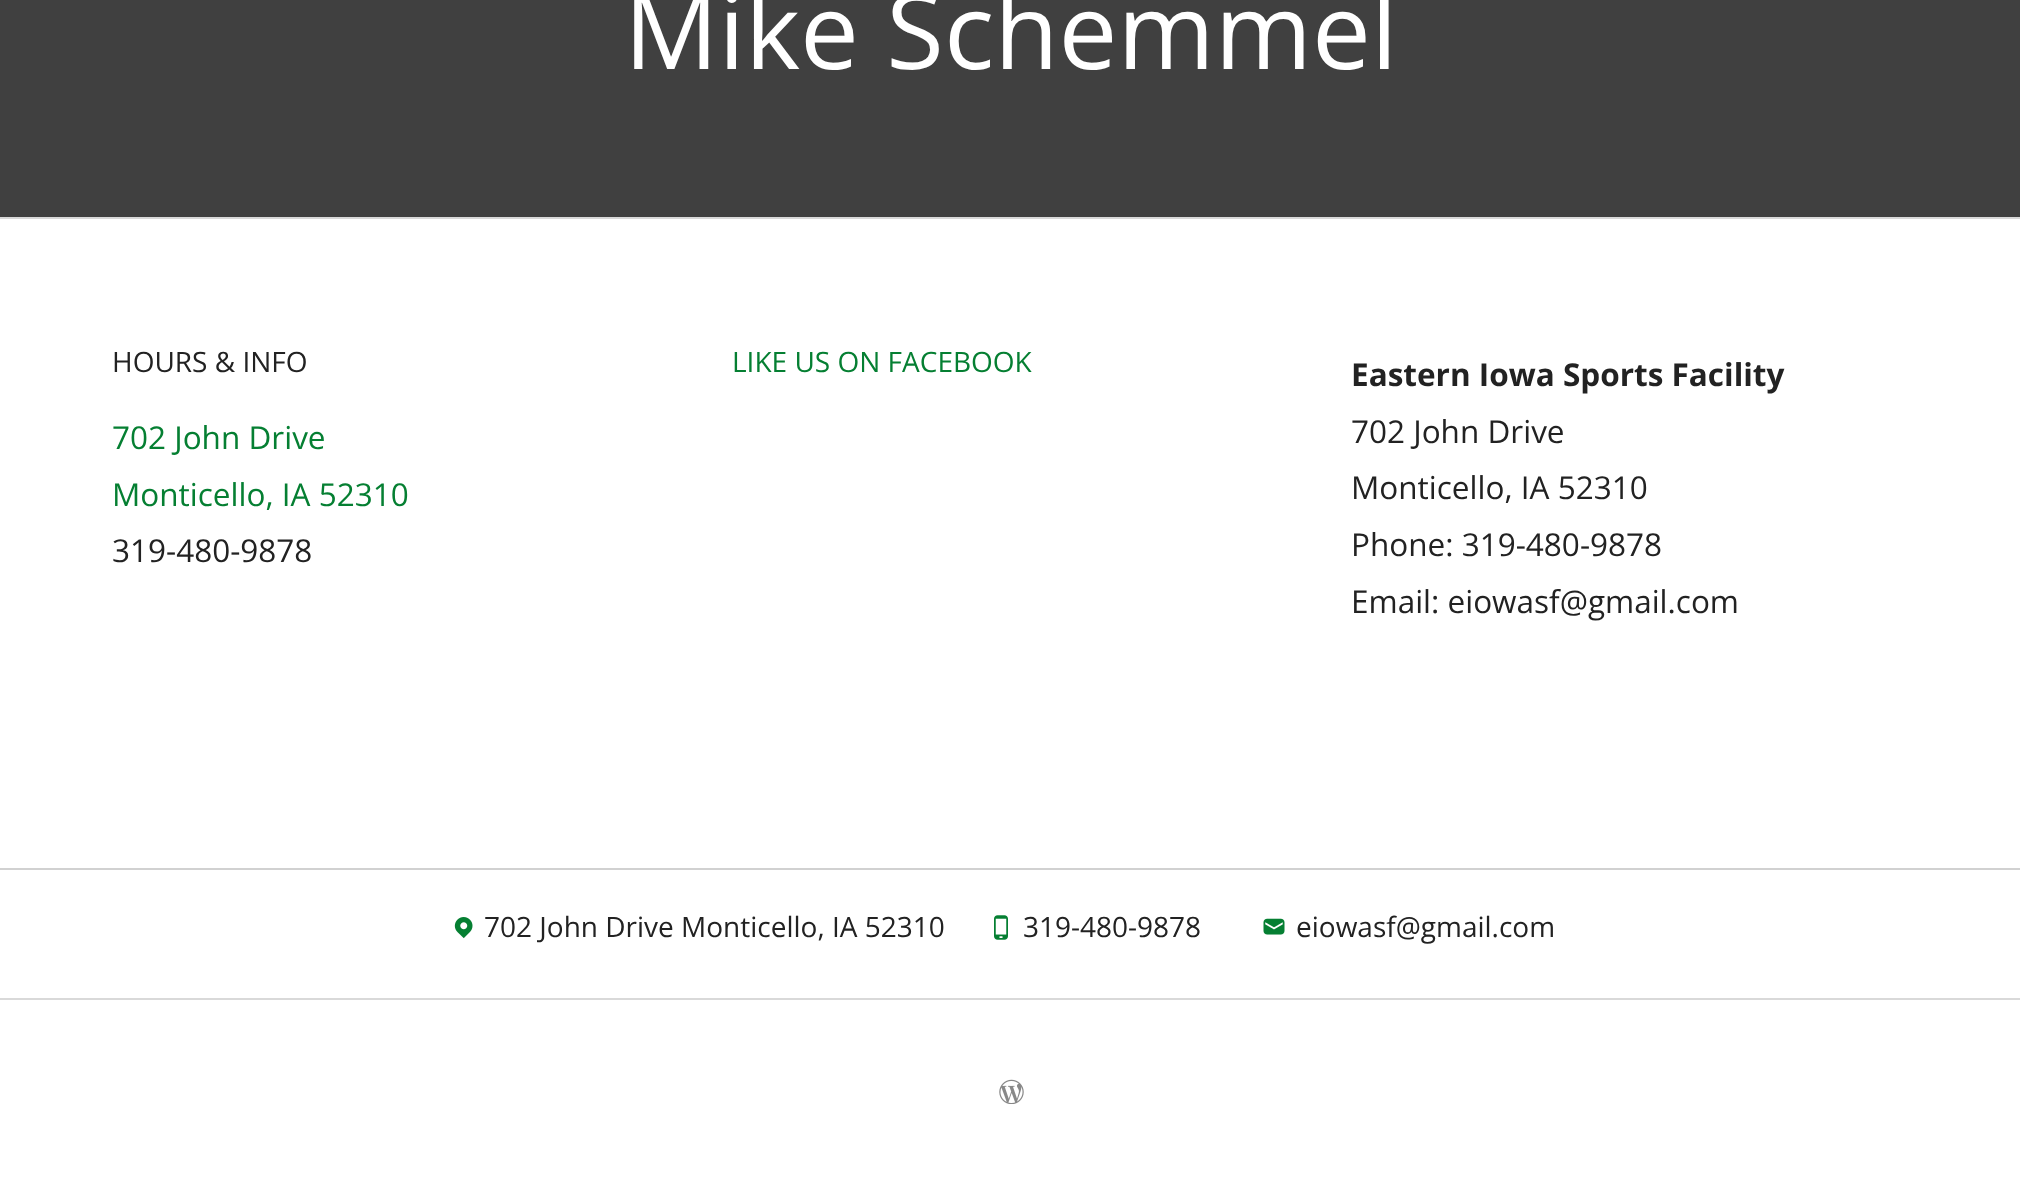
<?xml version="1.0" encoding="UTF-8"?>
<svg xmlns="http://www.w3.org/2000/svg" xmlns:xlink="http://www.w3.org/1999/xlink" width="2020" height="1187">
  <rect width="100%" height="100%" fill="#ffffff" />
  <rect width="2020" height="217" fill="#404040" />
  <rect y="217" width="2020" height="2" fill="#d9d9d9" />
  <rect y="868" width="2020" height="2" fill="#d1d1d1" />
  <image x="454" y="917" width="19" height="22" xlink:href="image1.png" />
  <image x="994" y="915" width="14" height="25" xlink:href="image2.png" />
  <image x="1263" y="918" width="22" height="17" xlink:href="image3.png" />
  <rect y="998" width="2020" height="2" fill="#d9d9d9" />
  <image x="999" y="1079" width="25" height="25" xlink:href="image4.png" />
  <text x="624" y="69" style="font-family: Open Sans; font-size: 105px; fill: #ffffff">Mike Schemmel</text>
  <text x="112" y="372" style="font-family: Open Sans; font-size: 28px; fill: #222222">HOURS &amp; INFO</text>
  <text x="112" y="449" style="font-family: Open Sans; font-size: 31.5px; fill: #057f32">702 John Drive</text>
  <text x="112" y="506" style="font-family: Open Sans; font-size: 31.5px; fill: #057f32">Monticello, IA 52310</text>
  <text x="112" y="562" style="font-family: Open Sans; font-size: 31.5px; fill: #222222">319-480-9878</text>
  <text x="732" y="372" style="font-family: Open Sans; font-size: 28px; fill: #057f32">LIKE US ON FACEBOOK</text>
  <text x="1351" y="386" style="font-family: Open Sans; font-size: 31.5px; font-weight: bold; fill: #222222">Eastern Iowa Sports Facility</text>
  <text x="1351" y="443" style="font-family: Open Sans; font-size: 31.5px; fill: #222222">702 John Drive</text>
  <text x="1351" y="499" style="font-family: Open Sans; font-size: 31.5px; fill: #222222">Monticello, IA 52310</text>
  <text x="1351" y="556" style="font-family: Open Sans; font-size: 31.5px; fill: #222222">Phone: 319-480-9878</text>
  <text x="1351" y="613" style="font-family: Open Sans; font-size: 31.5px; fill: #222222">Email: eiowasf@gmail.com</text>
  <text x="484" y="937" style="font-family: Open Sans; font-size: 28px; fill: #222222">702 John Drive Monticello, IA 52310</text>
  <text x="1023" y="937" style="font-family: Open Sans; font-size: 28px; fill: #222222">319-480-9878</text>
  <text x="1296" y="937" style="font-family: Open Sans; font-size: 28px; fill: #222222">eiowasf@gmail.com</text>
</svg>
